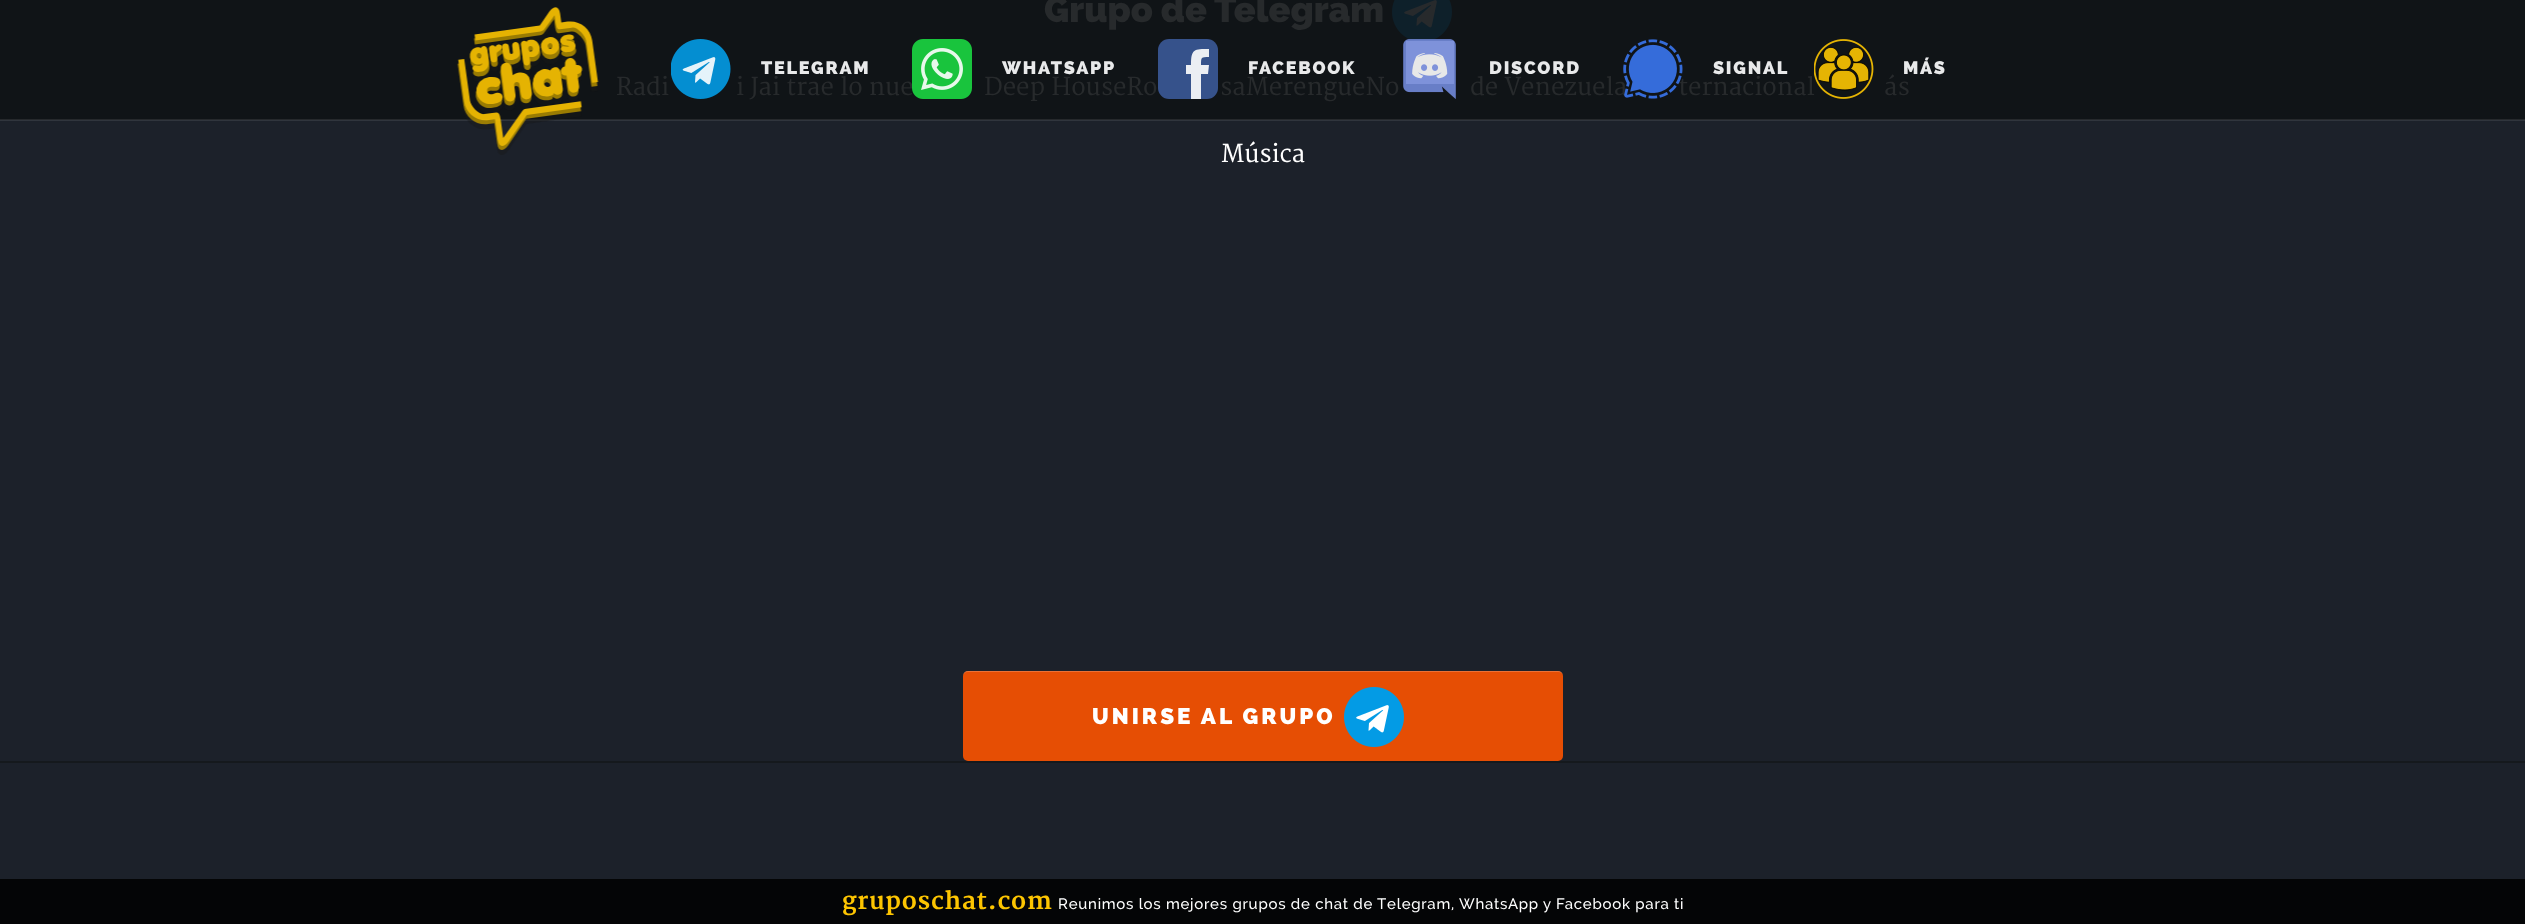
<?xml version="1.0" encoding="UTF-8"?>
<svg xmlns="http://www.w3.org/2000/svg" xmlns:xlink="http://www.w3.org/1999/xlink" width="2525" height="924">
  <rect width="100%" height="100%" fill="#1c212a" />
  <rect y="120" width="2525" height="1" fill="#30353d" />
  <rect width="2525" height="119" fill="#101417" />
  <rect y="119" width="2525" height="1" fill="#26292c" />
  <rect y="761" width="2525" height="2" fill="#15191d" />
  <image x="1392" y="0" width="60" height="42" xlink:href="image1.png" />
  <rect x="963" y="671" width="600" height="90" rx="5" fill="#e64e04" />
  <path d="M 968 672 h 590 c 3 0 5 2 5 4 c 0 -3 -2 -5 -5 -5 h -590 c -3 0 -5 2 -5 5 c 0 -2 2 -4 5 -4 z" fill="#ffffff" fill-opacity="0.2" />
  <image x="1344" y="687" width="60" height="60" xlink:href="image2.png" />
  <image x="457" y="7" width="142" height="148" xlink:href="image3.png" />
  <image x="671" y="39" width="60" height="60" xlink:href="image4.png" />
  <rect x="1158" y="39" width="60" height="60" rx="11" fill="#3b5998" fill-opacity="0.9" />
  <path d="M 1208 74 h -7 v 25 h -10 v -25 h -5 v -9 h 5 c 0 -16 3 -16 18 -16 v 8 c -8 0 -8 0 -8 8 h 8 z" fill="#ebeef3" />
  <image x="1403" y="39" width="53" height="60" xlink:href="image6.png" />
  <rect y="879" width="2525" height="45" fill="#040506" />
  <text x="1044" y="22" style="font-family: Raleway; font-size: 36px; font-weight: 900; fill: #272a2c">Grupo de Telegram</text>
  <text x="616" y="95" style="font-family: Merriweather; font-size: 24px; font-weight: 200; fill: #272a2c">Radi</text>
  <text x="736" y="95" style="font-family: Merriweather; font-size: 24px; font-weight: 200; fill: #272a2c">i Jai trae lo nue</text>
  <text x="984" y="95" style="font-family: Merriweather; font-size: 24px; font-weight: 200; fill: #272a2c">Deep HouseRo</text>
  <text x="1220" y="95" style="font-family: Merriweather; font-size: 24px; font-weight: 200; fill: #272a2c">saMerengueNo</text>
  <text x="1470" y="95" style="font-family: Merriweather; font-size: 24px; font-weight: 200; fill: #272a2c">de Venezuela</text>
  <text x="1678" y="95" style="font-family: Merriweather; font-size: 24px; font-weight: 200; fill: #272a2c">ternacional</text>
  <text x="1884" y="95" style="font-family: Merriweather; font-size: 24px; font-weight: 200; fill: #272a2c">ás</text>
  <text x="1221" y="162" style="font-family: Merriweather; font-size: 24px; font-weight: 200; fill: #ffffff">Música</text>
  <text x="1092" y="724" style="font-family: Raleway; font-size: 22.5px; font-weight: 900; letter-spacing: 3px; fill: #ffffff">UNIRSE AL GRUPO</text>
  <text x="761" y="74" style="font-family: Raleway; font-size: 18px; font-weight: 900; letter-spacing: 1.75px; fill: #e8e9ea">TELEGRAM</text>
  <image x="912" y="39" width="60" height="60" xlink:href="image5.png" />
  <text x="1002" y="74" style="font-family: Raleway; font-size: 18px; font-weight: 900; letter-spacing: 1.75px; fill: #e8e9ea">WHATSAPP</text>
  <text x="1248" y="74" style="font-family: Raleway; font-size: 18px; font-weight: 900; letter-spacing: 1.75px; fill: #e8e9ea">FACEBOOK</text>
  <text x="1489" y="74" style="font-family: Raleway; font-size: 18px; font-weight: 900; letter-spacing: 1.75px; fill: #e8e9ea">DISCORD</text>
  <image x="1623" y="39" width="60" height="60" xlink:href="image7.png" />
  <text x="1713" y="74" style="font-family: Raleway; font-size: 18px; font-weight: 900; letter-spacing: 1.75px; fill: #e8e9ea">SIGNAL</text>
  <image x="1814" y="39" width="60" height="60" xlink:href="image8.png" />
  <text x="1903" y="74" style="font-family: Raleway; font-size: 18px; font-weight: 900; letter-spacing: 1.75px; fill: #e8e9ea">MÁS</text>
  <text x="842" y="909" style="font-family: Merriweather; font-size: 24px; font-weight: bold; letter-spacing: 0.75px; fill: #fdc501">gruposchat.com</text>
  <text x="1058" y="909" style="font-family: Raleway; font-size: 15px; font-weight: 500; letter-spacing: 0.75px; fill: #ffffff">Reunimos los mejores grupos de chat de Telegram, WhatsApp y Facebook para ti</text>
</svg>
